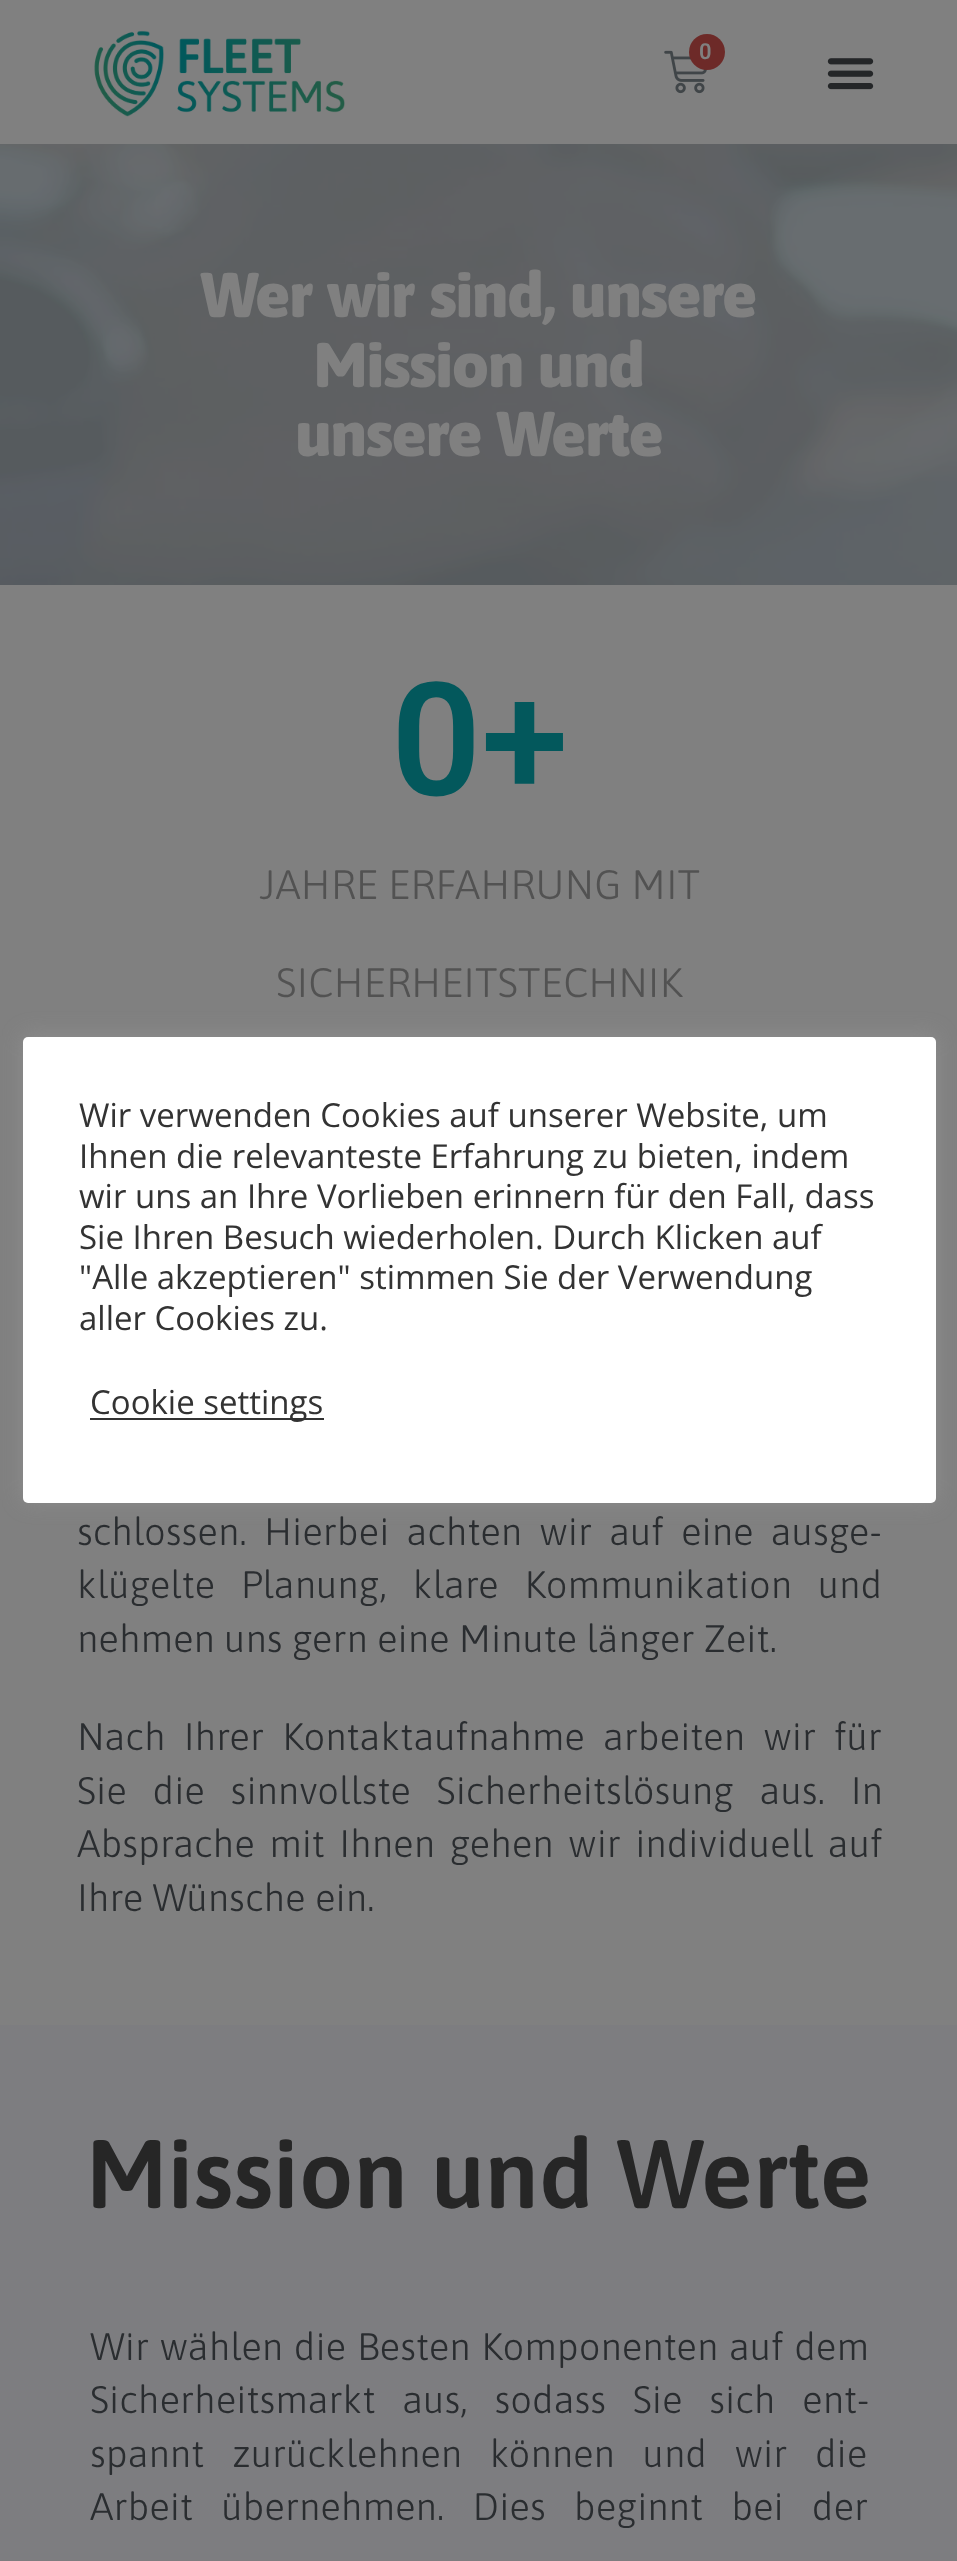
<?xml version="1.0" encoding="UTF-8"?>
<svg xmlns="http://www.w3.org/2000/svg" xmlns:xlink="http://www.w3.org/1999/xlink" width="957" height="2561">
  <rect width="100%" height="100%" fill="#808080" />
  <image x="94" y="30" width="251" height="87" xlink:href="image1.png" />
  <image x="664" y="50" width="43" height="44" xlink:href="image2.png" />
  <circle cx="707" cy="52" r="18" fill="#6d2a28" />
  <image x="827" y="58" width="47" height="32" xlink:href="image3.png" />
  <rect y="144" width="957" height="441" fill="#646a6e" />
  <image x="0" y="144" width="957" height="441" xlink:href="image4.png" />
  <rect y="2025" width="957" height="536" fill="#7d7d80" />
  <rect x="23" y="1035" width="913" height="466" rx="5" fill="#acabab" fill-opacity="0.3" filter="blur(11px)" />
  <rect x="23" y="1037" width="913" height="466" rx="5" fill="#ffffff" />
  <rect x="90" y="1418" width="234" height="2" fill="#333333" />
  <text x="699" y="59" style="font-family: Roboto; font-size: 22px; font-weight: 600; fill: #808080">0</text>
  <text x="201" y="317" style="font-family: Asap; font-size: 63px; font-weight: 900; fill: #808080">Wer wir sind, unsere</text>
  <text x="314" y="387" style="font-family: Asap; font-size: 63px; font-weight: 900; fill: #808080">Mission und</text>
  <text x="296" y="456" style="font-family: Asap; font-size: 63px; font-weight: 900; fill: #808080">unsere Werte</text>
  <text x="391" y="795" style="font-family: Roboto; font-size: 158px; font-weight: 600; fill: #03585c">0+</text>
  <text x="259" y="899" style="font-family: Asap; font-size: 41px; font-weight: 300; fill: #525252">JAHRE ERFAHRUNG MIT</text>
  <text x="276" y="997" style="font-family: Asap; font-size: 41px; font-weight: 300; fill: #525252">SICHERHEITSTECHNIK</text>
  <text x="77" y="1545" word-spacing="8" style="font-family: Asap; font-size: 38.25px; font-weight: 300; fill: #2a2d30">schlossen. Hierbei achten wir auf eine ausge-</text>
  <text x="77" y="1598" word-spacing="16.5" style="font-family: Asap; font-size: 38.25px; font-weight: 300; fill: #2a2d30">klügelte Planung, klare Kommunikation und</text>
  <text x="77" y="1652" style="font-family: Asap; font-size: 38.25px; font-weight: 300; fill: #2a2d30">nehmen uns gern eine Minute länger Zeit.</text>
  <text x="77" y="1750" word-spacing="9" style="font-family: Asap; font-size: 38.25px; font-weight: 300; fill: #2a2d30">Nach Ihrer Kontaktaufnahme arbeiten wir für</text>
  <text x="77" y="1804" word-spacing="16.5" style="font-family: Asap; font-size: 38.25px; font-weight: 300; fill: #2a2d30">Sie die sinnvollste Sicherheitslösung aus. In</text>
  <text x="77" y="1857" word-spacing="5.25" style="font-family: Asap; font-size: 38.25px; font-weight: 300; fill: #2a2d30">Absprache mit Ihnen gehen wir individuell auf</text>
  <text x="77" y="1911" style="font-family: Asap; font-size: 38.25px; font-weight: 300; fill: #2a2d30">Ihre Wünsche ein.</text>
  <text x="86" y="2208" style="font-family: Asap; font-size: 96.75px; font-weight: 600; fill: #262626">Mission und Werte</text>
  <text x="90" y="2360" word-spacing="1.5" style="font-family: Asap; font-size: 38.25px; font-weight: 300; fill: #2a2d30">Wir wählen die Besten Komponenten auf dem</text>
  <text x="90" y="2413" word-spacing="17.5" style="font-family: Asap; font-size: 38.25px; font-weight: 300; fill: #2a2d30">Sicherheitsmarkt aus, sodass Sie sich ent-</text>
  <text x="90" y="2467" word-spacing="18.5" style="font-family: Asap; font-size: 38.25px; font-weight: 300; fill: #2a2d30">spannt zurücklehnen können und wir die</text>
  <text x="90" y="2520" word-spacing="19" style="font-family: Asap; font-size: 38.25px; font-weight: 300; fill: #2a2d30">Arbeit übernehmen. Dies beginnt bei der</text>
  <text x="79" y="1127" style="font-family: Open Sans; font-size: 33px; fill: #333333">Wir verwenden Cookies auf unserer Website, um</text>
  <text x="79" y="1168" style="font-family: Open Sans; font-size: 33px; fill: #333333">Ihnen die relevanteste Erfahrung zu bieten, indem</text>
  <text x="79" y="1208" style="font-family: Open Sans; font-size: 33px; fill: #333333">wir uns an Ihre Vorlieben erinnern für den Fall, dass</text>
  <text x="79" y="1249" style="font-family: Open Sans; font-size: 33px; fill: #333333">Sie Ihren Besuch wiederholen. Durch Klicken auf</text>
  <text x="79" y="1289" style="font-family: Open Sans; font-size: 33px; fill: #333333">"Alle akzeptieren" stimmen Sie der Verwendung</text>
  <text x="79" y="1330" style="font-family: Open Sans; font-size: 33px; fill: #333333">aller Cookies zu.</text>
  <text x="90" y="1414" style="font-family: Open Sans; font-size: 33px; fill: #333333">Cookie settings</text>
</svg>
